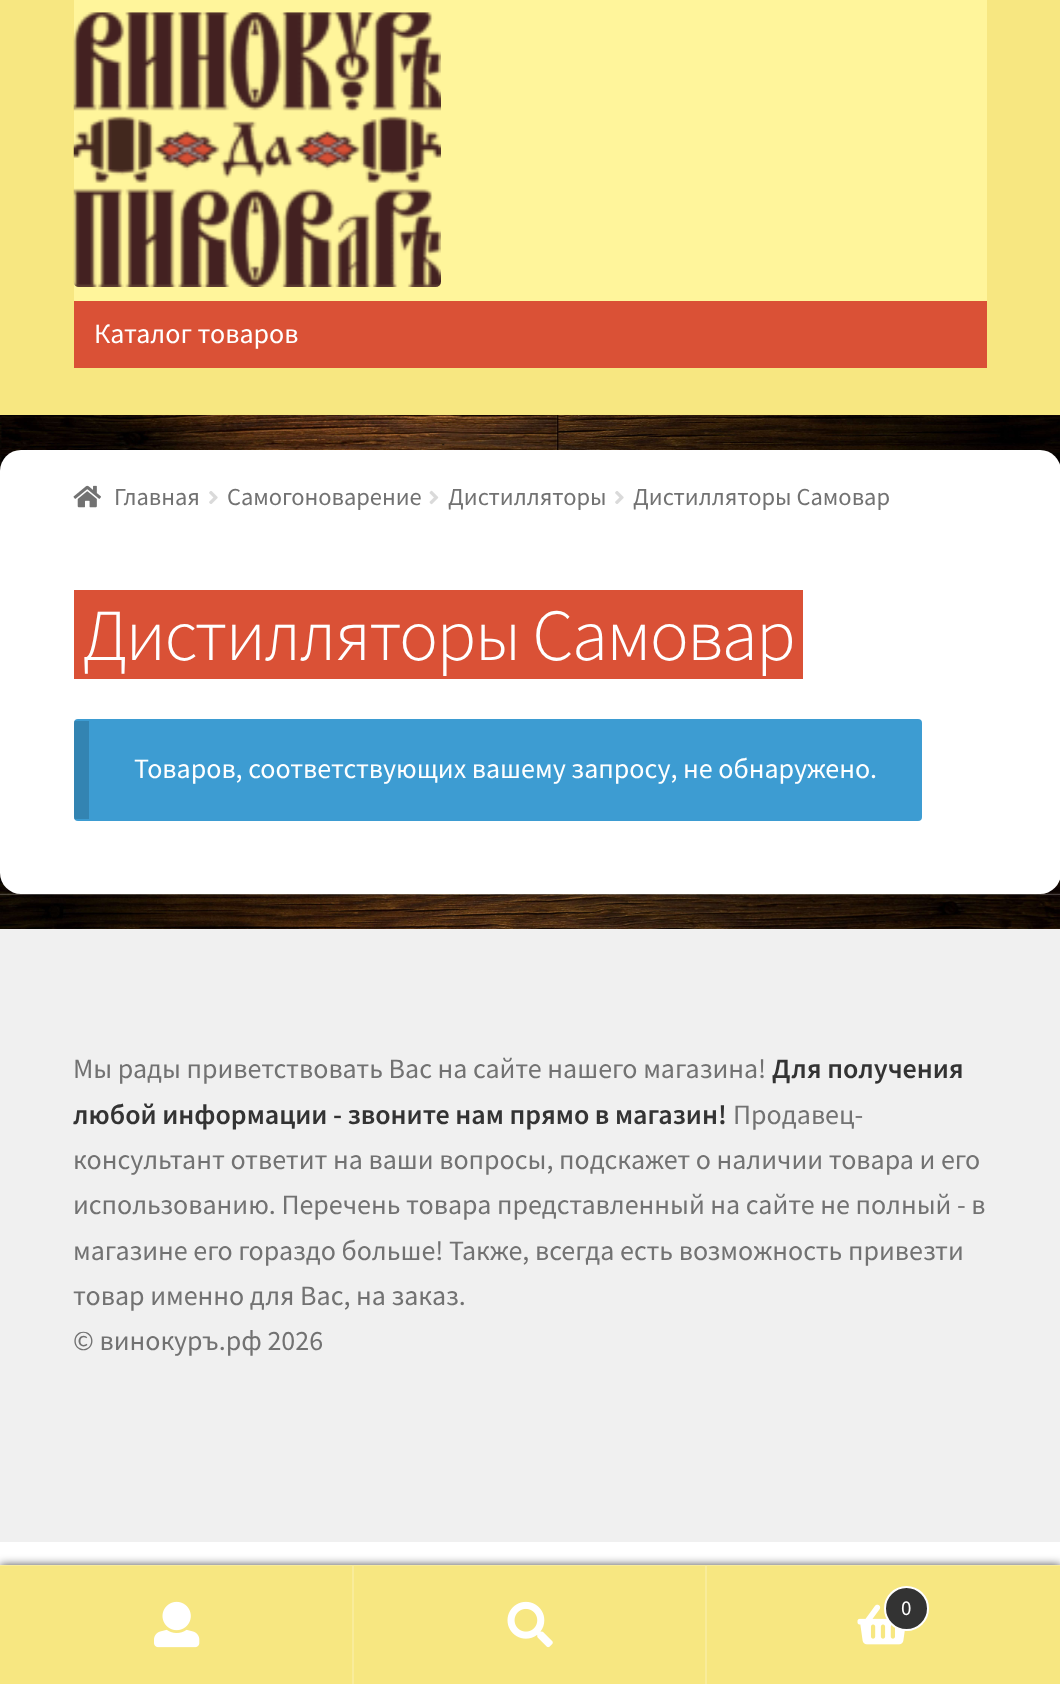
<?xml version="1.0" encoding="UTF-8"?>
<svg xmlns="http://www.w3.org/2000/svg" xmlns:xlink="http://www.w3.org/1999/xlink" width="1060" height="1684">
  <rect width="100%" height="100%" fill="#ffffff" />
  <image x="0" y="415" width="1060" height="514" xlink:href="image1.png" />
  <rect width="1060" height="415" fill="#f7e781" />
  <rect x="74" width="913" height="301" fill="#fff59b" />
  <image x="73" y="12" width="368" height="275" xlink:href="image2.png" />
  <rect x="74" y="301" width="913" height="67" fill="#da5136" />
  <rect y="450" width="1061" height="444" rx="21" fill="#ffffff" />
  <image x="73" y="485" width="28" height="23" xlink:href="image3.png" />
  <image x="209" y="491" width="9" height="13" xlink:href="image4.png" />
  <image x="429" y="490" width="10" height="15" xlink:href="image5.png" />
  <image x="615" y="491" width="9" height="13" xlink:href="image4.png" />
  <rect x="74" y="590" width="729" height="89" fill="#da5136" />
  <rect x="74" y="719" width="848" height="102" rx="4" fill="#3d9cd2" />
  <rect x="74" y="721" width="15" height="98" fill="#000000" fill-opacity="0.15" />
  <rect y="929" width="1060" height="613" fill="#f0f0f0" />
  <rect y="1565" width="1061" height="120" fill="#000000" fill-opacity="0.7" filter="blur(5px)" />
  <rect y="1565" width="1060" height="1" fill="#f9ec9a" />
  <rect y="1566" width="352" height="118" fill="#f7e781" />
  <rect x="352" y="1566" width="2" height="118" fill="#f9ec9a" />
  <image x="154" y="1601" width="46" height="47" xlink:href="image6.png" />
  <rect x="354" y="1566" width="351" height="118" fill="#f7e781" />
  <rect x="705" y="1566" width="2" height="118" fill="#f9ec9a" />
  <image x="507" y="1601" width="46" height="47" xlink:href="image7.png" />
  <rect x="707" y="1566" width="353" height="118" fill="#f7e781" />
  <image x="857" y="1604" width="48" height="41" xlink:href="image8.png" />
  <circle cx="906.5" cy="1608.5" r="21.5" fill="#333333" stroke="#ffffff" stroke-width="2" />
  <text x="94" y="343" style="font-family: Source Sans Pro; font-size: 28px; fill: #ffffff">Каталог товаров</text>
  <text x="114" y="505" style="font-family: Source Sans Pro; font-size: 24.5px; fill: #727272">Главная</text>
  <text x="227" y="505" style="font-family: Source Sans Pro; font-size: 24.5px; fill: #727272">Самогоноварение</text>
  <text x="448" y="505" style="font-family: Source Sans Pro; font-size: 24.5px; fill: #727272">Дистилляторы</text>
  <text x="633" y="505" style="font-family: Source Sans Pro; font-size: 24.5px; fill: #727272">Дистилляторы Самовар</text>
  <text x="82" y="660" style="font-family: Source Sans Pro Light; font-size: 73.25px; font-weight: 300; letter-spacing: -1.75px; fill: #ffffff">Дистилляторы Самовар</text>
  <text x="134" y="778" style="font-family: Source Sans Pro; font-size: 28px; fill: #ffffff">Товаров, соответствующих вашему запросу, не обнаружено.</text>
  <text x="73" y="1078" style="font-family: Source Sans Pro; font-size: 28px; fill: #727272">Мы рады приветствовать Вас на сайте нашего магазина!</text>
  <text x="772" y="1078" style="font-family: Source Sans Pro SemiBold; font-size: 28px; font-weight: 600; fill: #333333">Для получения</text>
  <text x="73" y="1124" style="font-family: Source Sans Pro SemiBold; font-size: 28px; font-weight: 600; fill: #333333">любой информации - звоните нам прямо в магазин!</text>
  <text x="733" y="1124" style="font-family: Source Sans Pro; font-size: 28px; fill: #727272">Продавец-</text>
  <text x="73" y="1169" style="font-family: Source Sans Pro; font-size: 28px; fill: #727272">консультант ответит на ваши вопросы, подскажет о наличии товара и его</text>
  <text x="73" y="1214" style="font-family: Source Sans Pro; font-size: 28px; fill: #727272">использованию. Перечень товара представленный на сайте не полный - в</text>
  <text x="73" y="1260" style="font-family: Source Sans Pro; font-size: 28px; fill: #727272">магазине его гораздо больше! Также, всегда есть возможность привезти</text>
  <text x="73" y="1305" style="font-family: Source Sans Pro; font-size: 28px; fill: #727272">товар именно для Вас, на заказ.</text>
  <text x="73" y="1350" style="font-family: Source Sans Pro; font-size: 28px; fill: #727272">© винокуръ.рф 2026</text>
  <text x="901" y="1615" style="font-family: Source Sans Pro; font-size: 21px; fill: #ffffff">0</text>
</svg>
